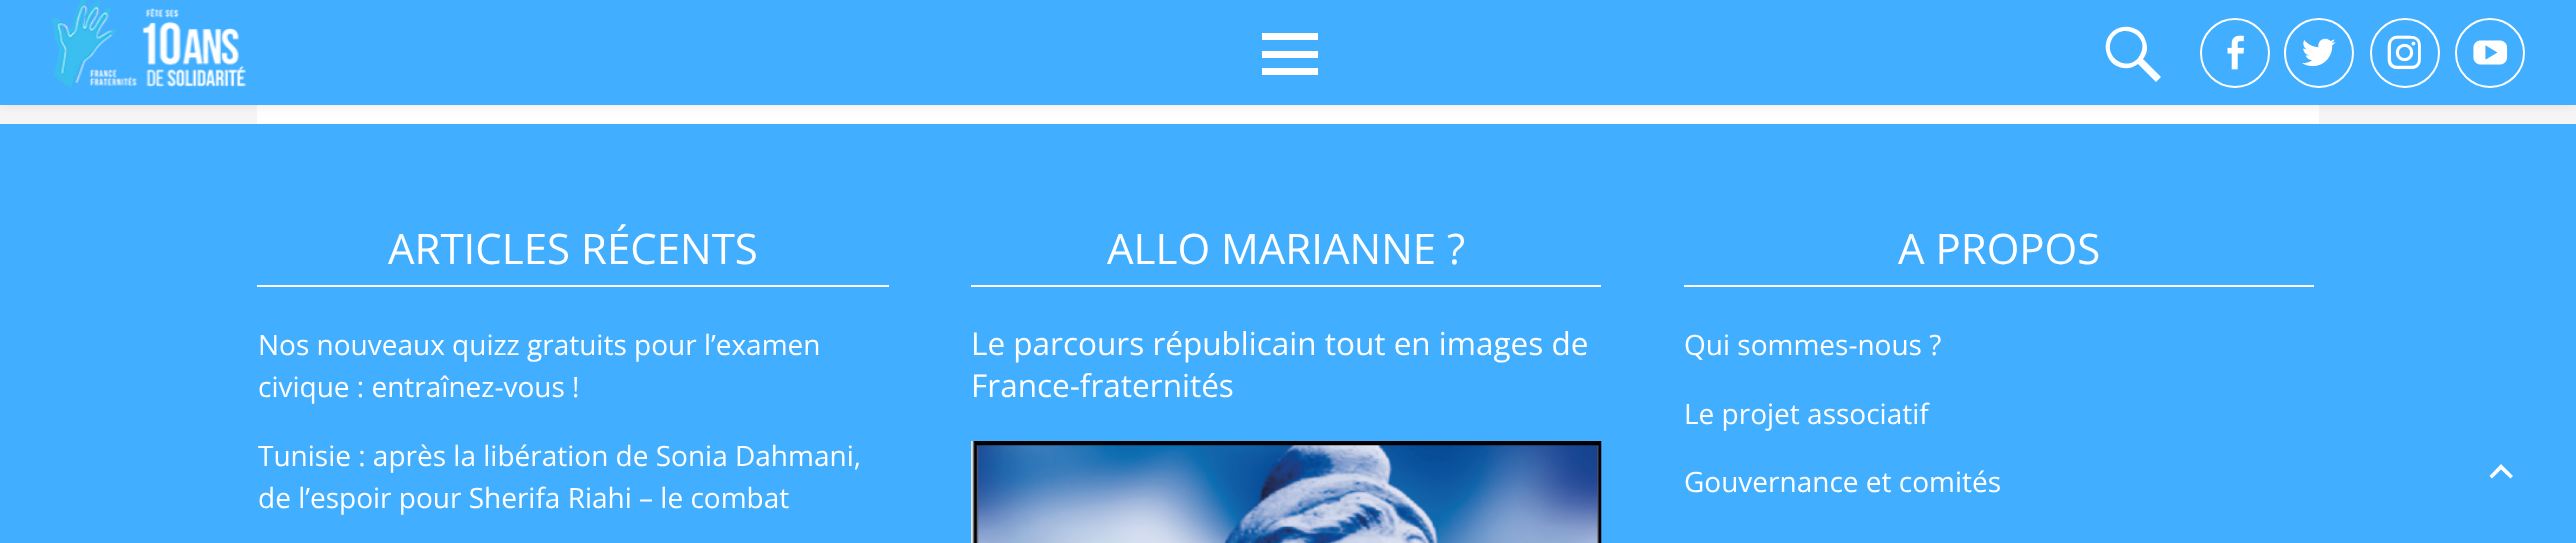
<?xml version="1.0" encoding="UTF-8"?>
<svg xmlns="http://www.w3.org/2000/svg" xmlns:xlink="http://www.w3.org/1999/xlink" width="2576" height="543">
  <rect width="100%" height="100%" fill="#f5f5f5" />
  <rect x="257" y="105" width="2062" height="19" fill="#ffffff" />
  <rect width="2576" height="105" fill="#000000" fill-opacity="0.1" filter="blur(6px)" />
  <rect width="2576" height="105" fill="#41aeff" />
  <image x="51" y="0" width="195" height="89" xlink:href="image1.png" />
  <path d="M 1262 75 v -7 h 56 v 7 z m 0 -42 h 56 v 7 h -56 z m 0 25 v -7 h 56 v 7 z" fill="#ffffff" />
  <path d="M 2161 77 l -5 5 l -18 -18 c -10 8 -25 4 -30 -7 c -2 -5 -3 -9 -2 -14 c 4 -21 35 -22 40 -1 c 2 6 1 12 -3 17 z m -49 -38 c -10 19 18 35 28 16 c 11 -18 -17 -34 -28 -16 z" fill="#ffffff" />
  <circle cx="2235" cy="53" r="34" fill="none" stroke="#ffffff" stroke-width="2" />
  <image x="2227" y="35" width="17" height="35" xlink:href="image2.png" />
  <circle cx="2319" cy="53" r="34" fill="none" stroke="#ffffff" stroke-width="2" />
  <image x="2302" y="38" width="34" height="29" xlink:href="image3.png" />
  <circle cx="2405" cy="53" r="34" fill="none" stroke="#ffffff" stroke-width="2" />
  <image x="2387" y="35" width="34" height="35" xlink:href="image4.png" />
  <circle cx="2490" cy="53" r="34" fill="none" stroke="#ffffff" stroke-width="2" />
  <image x="2473" y="40" width="35" height="25" xlink:href="image5.png" />
  <rect y="124" width="2576" height="419" fill="#41aeff" />
  <rect x="257" y="285" width="632" height="2" fill="#ffffff" />
  <rect x="971" y="285" width="630" height="2" fill="#ffffff" />
  <image x="971" y="441" width="631" height="102" xlink:href="image6.png" />
  <rect x="1684" y="285" width="630" height="2" fill="#ffffff" />
  <path d="M 2510.5 478.5 l -9.5 -9 l -9 9 l -2.5 -2.5 l 11.5 -12 l 12 12 z" fill="#ffffff" />
  <text x="388" y="264" style="font-family: Open Sans; font-size: 42px; fill: #ffffff">ARTICLES RÉCENTS</text>
  <text x="258" y="355" style="font-family: Open Sans; font-size: 28px; fill: #ffffff">Nos nouveaux quizz gratuits pour l’examen</text>
  <text x="258" y="397" style="font-family: Open Sans; font-size: 28px; fill: #ffffff">civique : entraînez-vous !</text>
  <text x="258" y="466" style="font-family: Open Sans; font-size: 28px; fill: #ffffff">Tunisie : après la libération de Sonia Dahmani,</text>
  <text x="258" y="508" style="font-family: Open Sans; font-size: 28px; fill: #ffffff">de l’espoir pour Sherifa Riahi – le combat</text>
  <text x="1107" y="264" style="font-family: Open Sans; font-size: 42px; fill: #ffffff">ALLO MARIANNE ?</text>
  <text x="971" y="355" style="font-family: Open Sans; font-size: 31.5px; fill: #ffffff">Le parcours républicain tout en images de</text>
  <text x="971" y="397" style="font-family: Open Sans; font-size: 31.5px; fill: #ffffff">France-fraternités</text>
  <text x="1898" y="264" style="font-family: Open Sans; font-size: 42px; fill: #ffffff">A PROPOS</text>
  <text x="1684" y="355" style="font-family: Open Sans; font-size: 28px; fill: #ffffff">Qui sommes-nous ?</text>
  <text x="1684" y="424" style="font-family: Open Sans; font-size: 28px; fill: #ffffff">Le projet associatif</text>
  <text x="1684" y="492" style="font-family: Open Sans; font-size: 28px; fill: #ffffff">Gouvernance et comités</text>
</svg>
